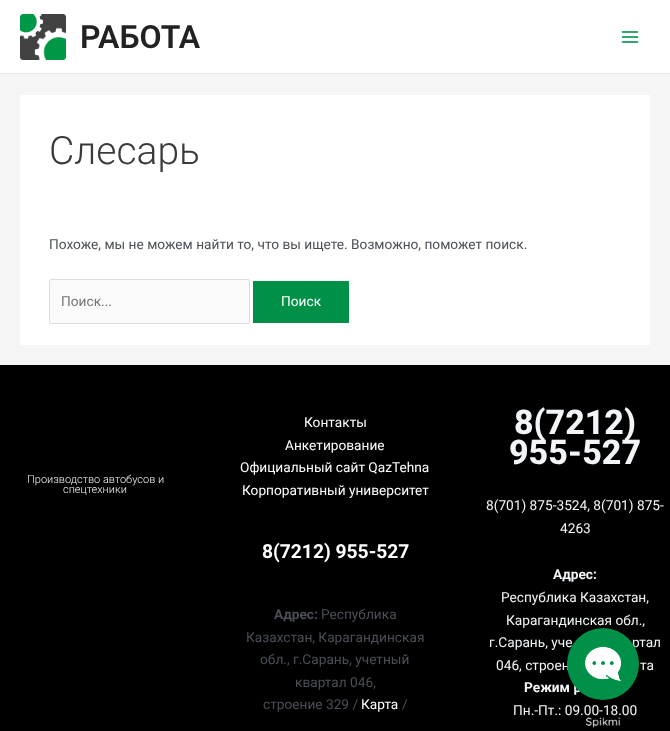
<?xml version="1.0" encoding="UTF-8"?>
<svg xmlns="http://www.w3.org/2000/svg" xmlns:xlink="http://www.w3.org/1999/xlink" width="670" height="731">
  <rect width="100%" height="100%" fill="#f5f5f5" />
  <rect width="670" height="73" fill="#ffffff" />
  <rect y="73" width="670" height="1" fill="#eaeaea" />
  <image x="20" y="14" width="46" height="46" xlink:href="image1.png" />
  <image x="621" y="31" width="18" height="12" xlink:href="image2.png" />
  <rect x="20" y="95" width="630" height="250" fill="#ffffff" />
  <rect x="49.5" y="279.5" width="200" height="44" rx="1.5" fill="#fafafa" stroke="#dddddd" />
  <rect x="253" y="281" width="96" height="42" fill="#009048" />
  <rect y="365" width="670" height="366" fill="#000000" />
  <image x="585" y="717" width="36" height="11" xlink:href="image4.png" />
  <text x="80" y="48" style="font-family: Roboto; font-size: 32px; font-weight: 600; fill: #222222">РАБОТА</text>
  <text x="49" y="164" style="font-family: Roboto; font-size: 39px; font-weight: 300; fill: #3a3a3a">Слесарь</text>
  <text x="49" y="249" style="font-family: Roboto; font-size: 13.7px; fill: #4b4f58">Похоже, мы не можем найти то, что вы ищете. Возможно, поможет поиск.</text>
  <text x="61" y="306" style="font-family: Roboto; font-size: 13.7px; fill: #757575">Поиск...</text>
  <text x="281" y="306" style="font-family: Roboto; font-size: 13.7px; fill: #ffffff">Поиск</text>
  <text x="27" y="483" style="font-family: Roboto; font-size: 11px; font-weight: 300; fill: #f2f5f7">Производство автобусов и</text>
  <text x="63" y="493" style="font-family: Roboto; font-size: 11px; font-weight: 300; fill: #f2f5f7">спецтехники</text>
  <text x="304" y="427" style="font-family: Roboto; font-size: 13.7px; fill: #ffffff">Контакты</text>
  <text x="285" y="450" style="font-family: Roboto; font-size: 13.7px; fill: #ffffff">Анкетирование</text>
  <text x="240" y="472" style="font-family: Roboto; font-size: 13.7px; fill: #ffffff">Официальный сайт QazTehna</text>
  <text x="242" y="495" style="font-family: Roboto; font-size: 13.7px; fill: #ffffff">Корпоративный университет</text>
  <text x="262" y="558" style="font-family: Roboto; font-size: 19.25px; font-weight: bold; fill: #ffffff">8(7212) 955-527</text>
  <text x="274" y="619" style="font-family: Roboto; font-size: 13.7px; font-weight: bold; fill: #4b4f58">Адрес:</text>
  <text x="321" y="619" style="font-family: Roboto; font-size: 13.7px; fill: #4b4f58">Республика</text>
  <text x="246" y="642" style="font-family: Roboto; font-size: 13.7px; fill: #4b4f58">Казахстан, Карагандинская</text>
  <text x="260" y="664" style="font-family: Roboto; font-size: 13.7px; fill: #4b4f58">обл., г.Сарань, учетный</text>
  <text x="295" y="687" style="font-family: Roboto; font-size: 13.7px; fill: #4b4f58">квартал 046,</text>
  <text x="263" y="709" style="font-family: Roboto; font-size: 13.7px; fill: #4b4f58">строение 329 /</text>
  <text x="361" y="709" style="font-family: Roboto; font-size: 13.7px; fill: #ffffff">Карта</text>
  <text x="402" y="709" style="font-family: Roboto; font-size: 13.7px; fill: #4b4f58">/</text>
  <text x="514" y="434" style="font-family: Roboto; font-size: 34px; font-weight: 800; fill: #f2f5f7">8(7212)</text>
  <text x="509" y="464" style="font-family: Roboto; font-size: 34px; font-weight: 800; fill: #f2f5f7">955-527</text>
  <text x="486" y="510" style="font-family: Roboto; font-size: 13.7px; fill: #f2f5f7">8(701) 875-3524, 8(701) 875-</text>
  <text x="560" y="533" style="font-family: Roboto; font-size: 13.7px; fill: #f2f5f7">4263</text>
  <text x="553" y="579" style="font-family: Roboto; font-size: 13.7px; font-weight: bold; fill: #f2f5f7">Адрес:</text>
  <text x="501" y="602" style="font-family: Roboto; font-size: 13.7px; fill: #f2f5f7">Республика Казахстан,</text>
  <text x="506" y="625" style="font-family: Roboto; font-size: 13.7px; fill: #f2f5f7">Карагандинская обл.,</text>
  <text x="489" y="647" style="font-family: Roboto; font-size: 13.7px; fill: #f2f5f7">г.Сарань, уче</text>
  <text x="632" y="647" style="font-family: Roboto; font-size: 13.7px; fill: #f2f5f7">ртал</text>
  <text x="496" y="670" style="font-family: Roboto; font-size: 13.7px; fill: #f2f5f7">046, строен</text>
  <text x="640" y="670" style="font-family: Roboto; font-size: 13.7px; fill: #f2f5f7">та</text>
  <text x="524" y="692" style="font-family: Roboto; font-size: 13.7px; font-weight: bold; fill: #f2f5f7">Режим р</text>
  <text x="513" y="715" style="font-family: Roboto; font-size: 13.7px; fill: #f2f5f7">Пн.-Пт.: 09.00-18.00</text>
  <circle cx="603" cy="664" r="36" fill="#009048" />
  <image x="585" y="646" width="36" height="36" xlink:href="image3.png" />
</svg>
